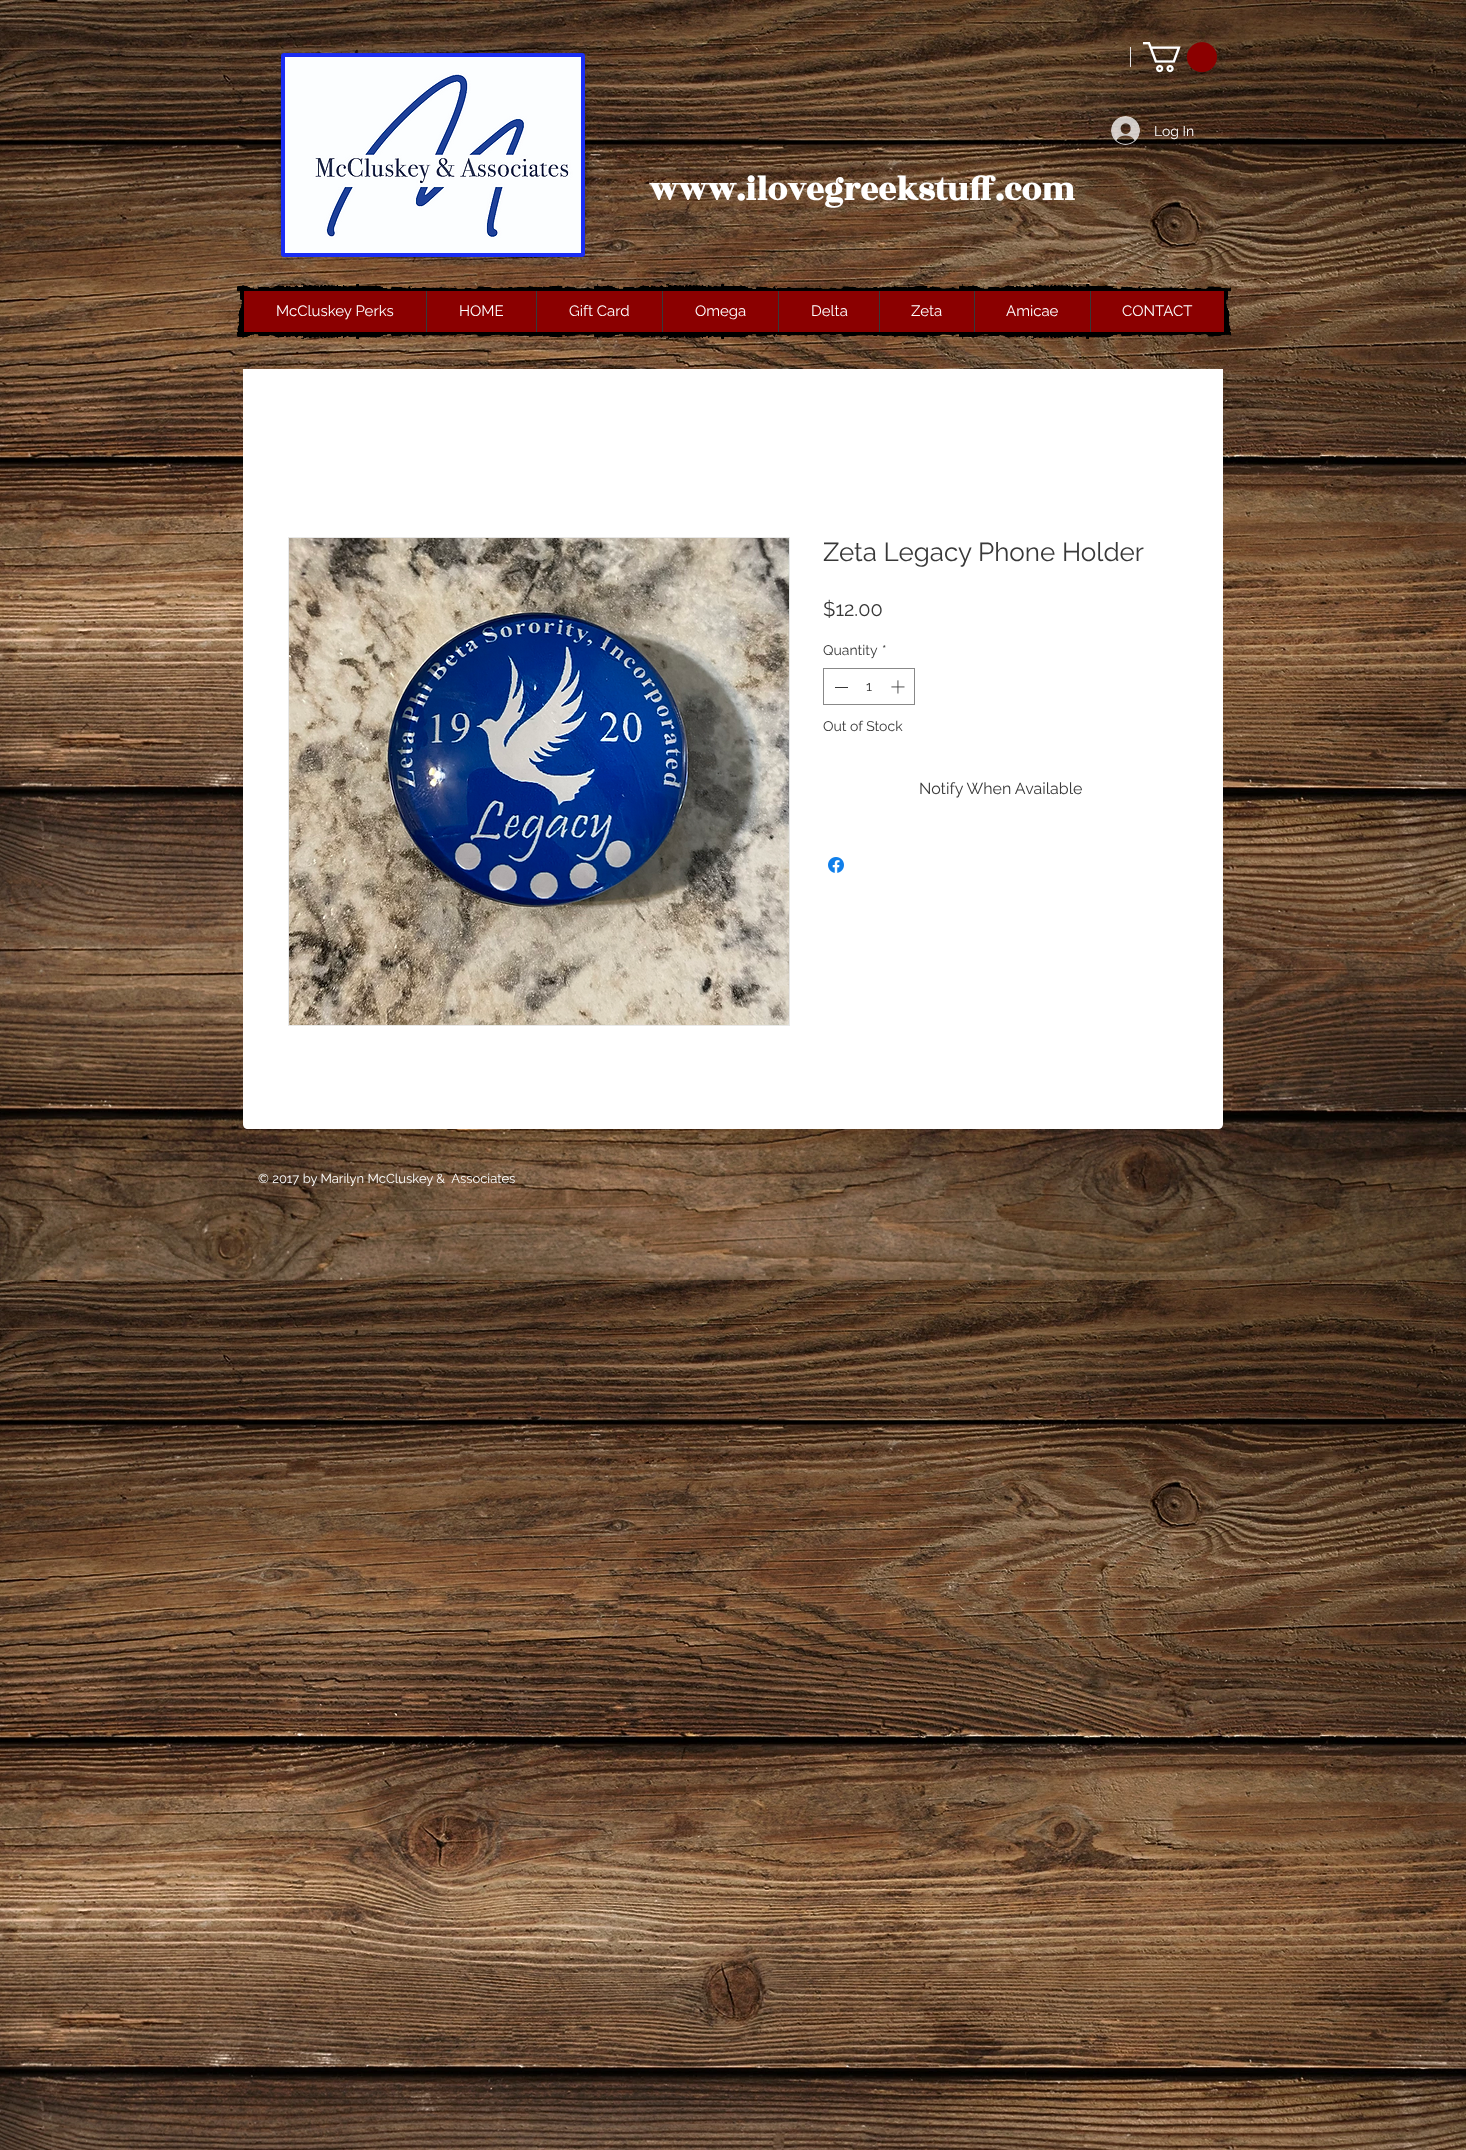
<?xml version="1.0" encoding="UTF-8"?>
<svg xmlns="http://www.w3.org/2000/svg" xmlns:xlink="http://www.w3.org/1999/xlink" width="1466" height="2150">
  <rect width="100%" height="100%" fill="#ffffff" />
  <image x="0" y="0" width="1466" height="2150" xlink:href="image1.png" />
  <rect x="281" y="53" width="304" height="204" rx="3" fill="#000000" fill-opacity="0.1" filter="blur(2.5px)" />
  <rect x="283" y="55" width="300" height="200" rx="1" fill="none" stroke="#1a2df3" stroke-width="4" />
  <image x="285" y="57" width="296" height="196" xlink:href="image2.png" />
  <image x="346" y="257" width="164" height="2" xlink:href="image3.png" />
  <image x="272" y="107" width="9" height="129" xlink:href="image4.png" />
  <image x="585" y="106" width="9" height="131" xlink:href="image5.png" />
  <rect x="1130" y="47" width="1" height="20" fill="#e9e9e9" />
  <image x="1143" y="42" width="74" height="31" xlink:href="image6.png" />
  <image x="1111" y="116" width="29" height="29" xlink:href="image7.png" />
  <image x="237" y="284" width="994" height="7" xlink:href="image8.png" />
  <image x="237" y="291" width="7" height="41" xlink:href="image9.png" />
  <rect x="244" y="291" width="980" height="41" fill="#8b0000" />
  <rect x="426" y="291" width="1" height="41" fill="#383838" />
  <rect x="536" y="291" width="1" height="41" fill="#383838" />
  <rect x="662" y="291" width="1" height="41" fill="#383838" />
  <rect x="778" y="291" width="1" height="41" fill="#383838" />
  <rect x="879" y="291" width="1" height="41" fill="#383838" />
  <rect x="974" y="291" width="1" height="41" fill="#383838" />
  <rect x="1090" y="291" width="1" height="41" fill="#383838" />
  <image x="1224" y="291" width="7" height="41" xlink:href="image10.png" />
  <image x="237" y="332" width="994" height="7" xlink:href="image11.png" />
  <path d="M 243 369 h 980 v 755 c 0 3 -2 5 -5 5 h -970 c -3 0 -5 -2 -5 -5 z" fill="#ffffff" />
  <rect x="288.5" y="537.5" width="501" height="488" fill="none" stroke="#e9e9e9" />
  <image x="289" y="538" width="500" height="487" xlink:href="image12.png" />
  <rect x="823.5" y="668.5" width="91" height="36" fill="none" stroke="#888888" />
  <rect x="835" y="687" width="13" height="1" fill="#383838" />
  <image x="891" y="680" width="14" height="14" xlink:href="image13.png" />
  <image x="828" y="857" width="16" height="16" xlink:href="image14.png" />
  <text x="1154" y="136" style="font-family: Raleway; font-size: 14px; fill: #ffffff">Log In</text>
  <text x="649" y="200" style="font-family: Rozha One; font-size: 35px; font-weight: bold; fill: #ffffff">www.ilovegreekstuff.com</text>
  <text x="276" y="316" style="font-family: Raleway; font-size: 15px; fill: #ffffff">McCluskey Perks</text>
  <text x="459" y="316" style="font-family: Raleway; font-size: 15px; fill: #ffffff">HOME</text>
  <text x="569" y="316" style="font-family: Raleway; font-size: 15px; fill: #ffffff">Gift Card</text>
  <text x="695" y="316" style="font-family: Raleway; font-size: 15px; fill: #ffffff">Omega</text>
  <text x="811" y="316" style="font-family: Raleway; font-size: 15px; fill: #ffffff">Delta</text>
  <text x="911" y="316" style="font-family: Raleway; font-size: 15px; fill: #ffffff">Zeta</text>
  <text x="1006" y="316" style="font-family: Raleway; font-size: 15px; fill: #ffffff">Amicae</text>
  <text x="1122" y="316" style="font-family: Raleway; font-size: 15px; fill: #ffffff">CONTACT</text>
  <text x="823" y="561" style="font-family: Raleway; font-size: 26px; fill: #383838">Zeta Legacy Phone Holder</text>
  <text x="823" y="616" style="font-family: Raleway; font-size: 20px; fill: #383838">$12.00</text>
  <text x="823" y="655" style="font-family: Raleway; font-size: 14px; fill: #383838">Quantity</text>
  <text x="882" y="655" style="font-family: Raleway; font-size: 14px; fill: #383838">*</text>
  <text x="866" y="691" style="font-family: Raleway; font-size: 14px; fill: #383838">1</text>
  <text x="823" y="731" style="font-family: Raleway; font-size: 14px; fill: #383838">Out of Stock</text>
  <text x="919" y="794" style="font-family: Raleway; font-size: 16px; fill: #383838">Notify When Available</text>
  <text x="258" y="1183" style="font-family: Raleway; font-size: 13px; fill: #ffffff" xml:space="preserve">© 2017 by Marilyn McCluskey &amp;  Associates</text>
</svg>
